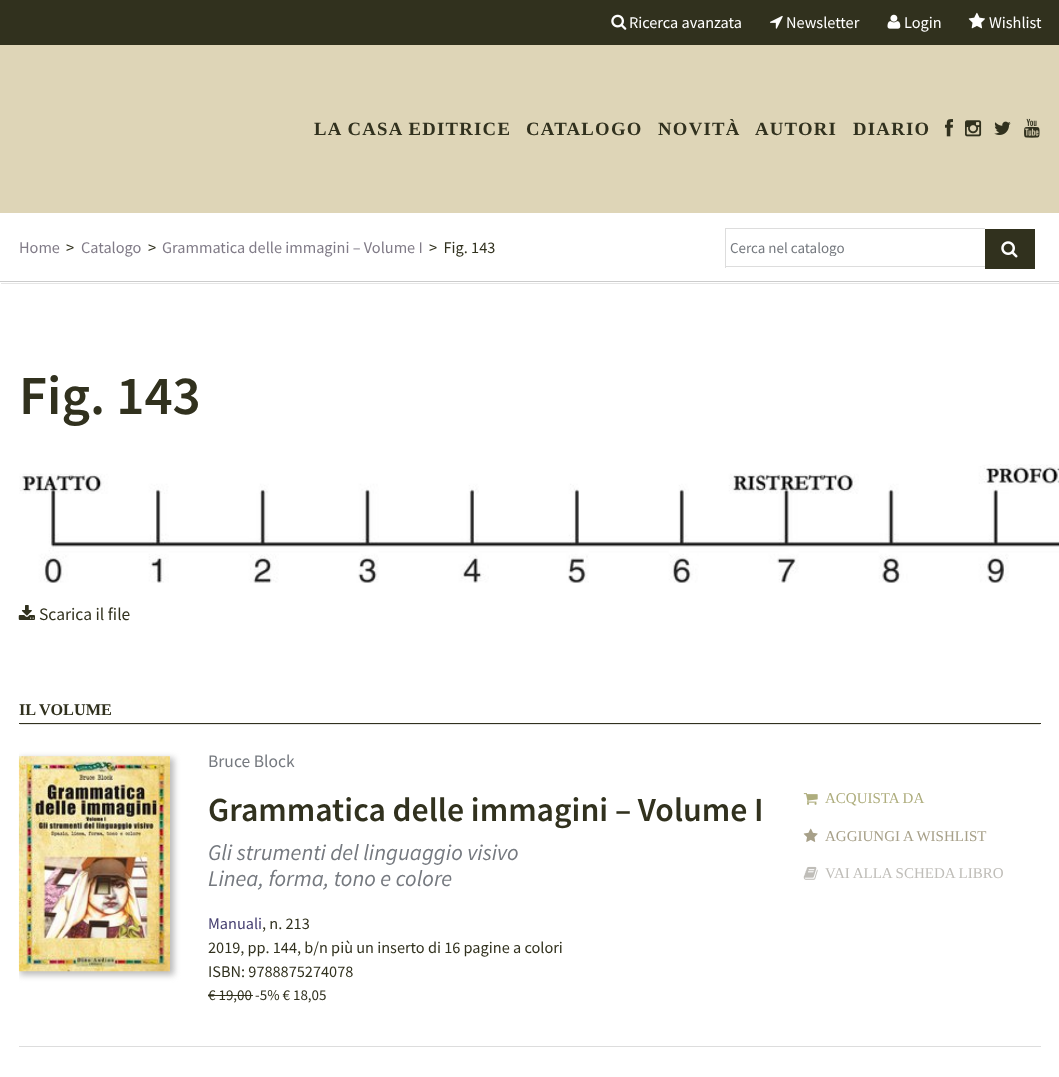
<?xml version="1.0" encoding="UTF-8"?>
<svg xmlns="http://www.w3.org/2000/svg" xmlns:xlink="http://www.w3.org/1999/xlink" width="1059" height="1077">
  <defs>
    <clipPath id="clip1"><rect x="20" y="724" width="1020" height="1" /></clipPath>
    <clipPath id="clip2"><rect x="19" y="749" width="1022" height="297" /></clipPath>
    <clipPath id="clip3"><rect x="730" y="238" width="251" height="18" /></clipPath>
  </defs>
  <rect width="100%" height="100%" fill="#ffffff" />
  <rect width="1059" height="45" fill="#31311e" />
  <image x="611" y="14" width="16" height="16" xlink:href="image1.png" />
  <image x="770" y="15" width="13" height="14" xlink:href="image2.png" />
  <image x="887" y="14" width="14" height="15" xlink:href="image3.png" />
  <image x="968" y="12" width="17" height="17" xlink:href="image4.png" />
  <rect y="45" width="1059" height="168" fill="#ded5b7" />
  <image x="945" y="119" width="8" height="18" xlink:href="image5.png" />
  <image x="965" y="120" width="17" height="17" xlink:href="image6.png" />
  <image x="994" y="121" width="17" height="14" xlink:href="image7.png" />
  <image x="1024" y="118" width="16" height="20" xlink:href="image8.png" />
  <rect x="1" y="216" width="1058" height="68" fill="#000000" fill-opacity="0.1" filter="blur(0.5px)" />
  <rect y="215" width="1059" height="68" fill="#ffffff" />
  <rect y="281" width="1059" height="1" fill="#cccccc" />
  <rect x="725" y="228" width="260" height="1" fill="#dddddd" />
  <rect x="725" y="266" width="260" height="1" fill="#dddddd" />
  <rect x="725" y="228" width="1" height="40" fill="#dddddd" />
  <rect x="985" y="229" width="50" height="40" fill="#31311e" />
  <image x="1001" y="241" width="17" height="17" xlink:href="image9.png" />
  <image x="19" y="464" width="1040" height="119" xlink:href="image10.png" />
  <image x="18" y="605" width="17" height="15" xlink:href="image11.png" />
  <g clip-path="url(#clip1)">
    <rect x="20" y="700" width="1020" height="25" fill="#000000" fill-opacity="0.1" filter="blur(0.5px)" />
  </g>
  <rect x="19" y="723" width="1022" height="1" fill="#31311e" />
  <rect x="19" y="1046" width="1022" height="1" fill="#dddddd" />
  <g clip-path="url(#clip2)">
    <rect x="20" y="758" width="154" height="217" fill="#bbbbbb" filter="blur(3px)" />
  </g>
  <image x="18" y="756" width="152" height="216" xlink:href="image12.png" />
  <rect x="208" y="995" width="45" height="1" fill="#31311e" />
  <image x="803" y="793" width="15" height="12" xlink:href="image13.png" />
  <image x="803" y="828" width="15" height="14" xlink:href="image14.png" />
  <image x="803" y="866" width="15" height="14" xlink:href="image15.png" />
  <text x="629" y="28" style="font-family: Source Sans Pro; font-size: 16.25px; fill: #ffffff">Ricerca avanzata</text>
  <text x="786" y="28" style="font-family: Source Sans Pro; font-size: 16.25px; fill: #ffffff">Newsletter</text>
  <text x="904" y="28" style="font-family: Source Sans Pro; font-size: 16.25px; fill: #ffffff">Login</text>
  <text x="989" y="28" style="font-family: Source Sans Pro; font-size: 16.25px; fill: #ffffff">Wishlist</text>
  <text x="314" y="135" style="font-family: Liberation Serif; font-size: 18.75px; font-weight: bold; letter-spacing: 1.25px; fill: #31311e">LA CASA EDITRICE</text>
  <text x="526" y="135" style="font-family: Liberation Serif; font-size: 18.75px; font-weight: bold; letter-spacing: 1.25px; fill: #31311e">CATALOGO</text>
  <text x="658" y="135" style="font-family: Liberation Serif; font-size: 18.75px; font-weight: bold; letter-spacing: 1.25px; fill: #31311e">NOVITÀ</text>
  <text x="755" y="135" style="font-family: Liberation Serif; font-size: 18.75px; font-weight: bold; letter-spacing: 1.25px; fill: #31311e">AUTORI</text>
  <text x="853" y="135" style="font-family: Liberation Serif; font-size: 18.75px; font-weight: bold; letter-spacing: 1.25px; fill: #31311e">DIARIO</text>
  <text x="19" y="253" style="font-family: Source Sans Pro; font-size: 16.25px; fill: #807b87">Home</text>
  <text x="66" y="253" style="font-family: Source Sans Pro; font-size: 16.25px; fill: #31311e">&gt;</text>
  <text x="81" y="253" style="font-family: Source Sans Pro; font-size: 16.25px; fill: #807b87">Catalogo</text>
  <text x="148" y="253" style="font-family: Source Sans Pro; font-size: 16.25px; fill: #31311e">&gt;</text>
  <text x="162" y="253" style="font-family: Source Sans Pro; font-size: 16.25px; fill: #807b87">Grammatica delle immagini – Volume I</text>
  <text x="429" y="253" style="font-family: Source Sans Pro; font-size: 16.25px; fill: #31311e" xml:space="preserve">&gt;  Fig. 143</text>
  <g clip-path="url(#clip3)">
    <text x="730" y="253" style="font-family: Source Sans Pro; font-size: 15px; fill: #75797f">Cerca nel catalogo</text>
  </g>
  <text x="19" y="414" style="font-family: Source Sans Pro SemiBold; font-size: 55px; font-weight: 600; fill: #31311e">Fig. 143</text>
  <text x="39" y="620" style="font-family: Source Sans Pro; font-size: 17.5px; fill: #31311e">Scarica il file</text>
  <text x="19" y="715" style="font-family: Liberation Serif; font-size: 16.25px; font-weight: bold; fill: #31311e">IL VOLUME</text>
  <text x="208" y="767" style="font-family: Source Sans Pro; font-size: 17.5px; fill: #75797f">Bruce Block</text>
  <text x="208" y="821" style="font-family: Source Sans Pro SemiBold; font-size: 33.75px; font-weight: 600; fill: #31311e">Grammatica delle immagini – Volume I</text>
  <text x="208" y="860" style="font-family: Source Sans Pro; font-size: 22.5px; font-style: italic; fill: #75797f">Gli strumenti del linguaggio visivo</text>
  <text x="208" y="886" style="font-family: Source Sans Pro; font-size: 22.5px; font-style: italic; fill: #75797f">Linea, forma, tono e colore</text>
  <text x="208" y="929" style="font-family: Source Sans Pro; font-size: 16.25px; fill: #443e6f">Manuali</text>
  <text x="262" y="929" style="font-family: Source Sans Pro; font-size: 16.25px; fill: #31311e">, n. 213</text>
  <text x="208" y="953" style="font-family: Source Sans Pro; font-size: 16.25px; fill: #31311e">2019, pp. 144, b/n più un inserto di 16 pagine a colori</text>
  <text x="208" y="977" style="font-family: Source Sans Pro; font-size: 16.25px; fill: #31311e">ISBN: 9788875274078</text>
  <text x="208" y="1000" style="font-family: Source Sans Pro; font-size: 15px; fill: #31311e">€ 19,00 -5% € 18,05</text>
  <text x="825" y="803" style="font-family: Liberation Serif; font-size: 15px; fill: #aead7d">ACQUISTA DA</text>
  <text x="825" y="841" style="font-family: Liberation Serif; font-size: 15px; fill: #a7a089">AGGIUNGI A WISHLIST</text>
  <text x="825" y="878" style="font-family: Liberation Serif; font-size: 15px; fill: #bfbdb8">VAI ALLA SCHEDA LIBRO</text>
</svg>
